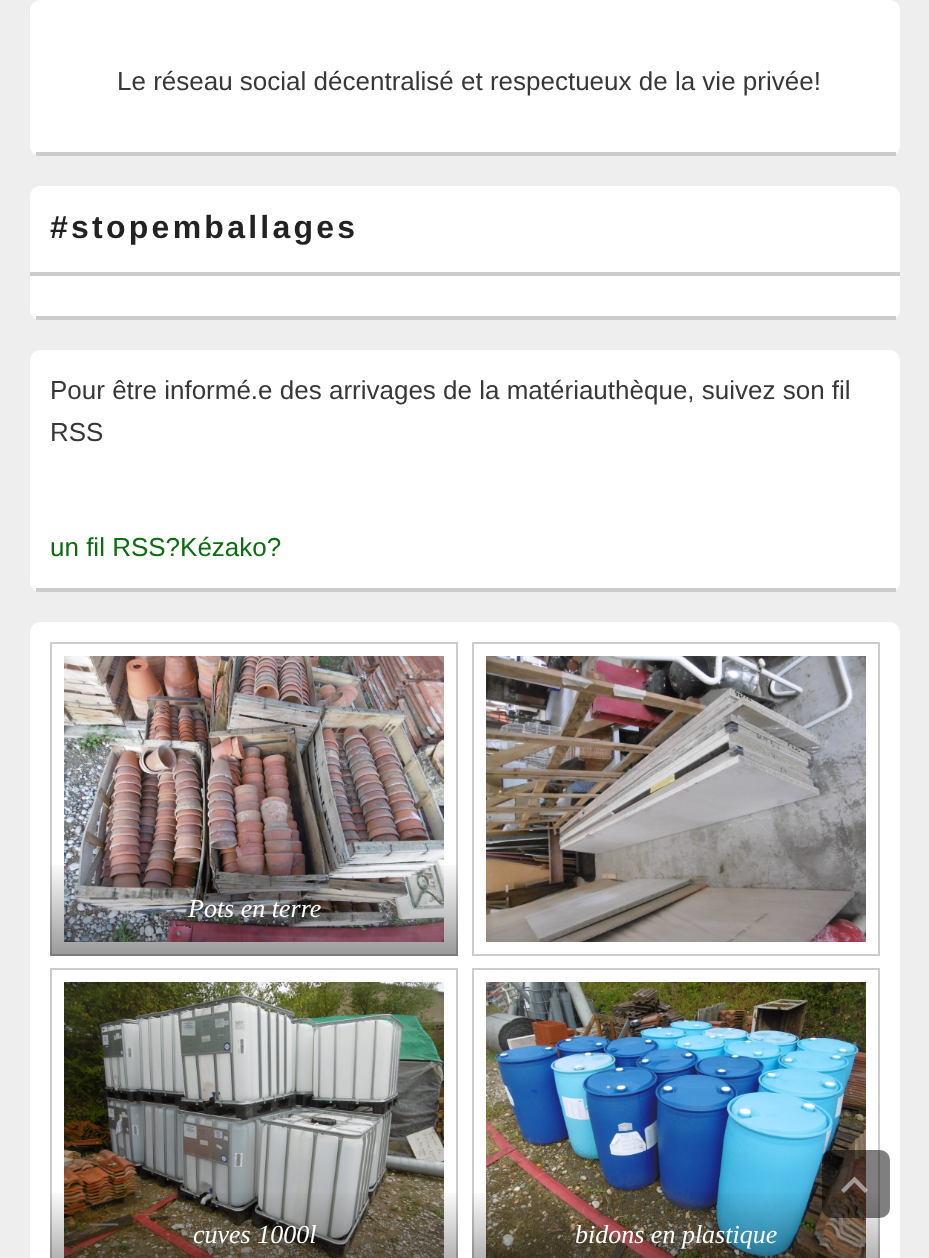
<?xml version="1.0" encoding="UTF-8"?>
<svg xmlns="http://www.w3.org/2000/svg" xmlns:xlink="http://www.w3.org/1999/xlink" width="929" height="1258">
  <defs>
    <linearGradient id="g1" gradientUnits="userSpaceOnUse" x1="254" y1="956" x2="254" y2="860"><stop offset="0" stop-color="#000000" stop-opacity="0.4" /><stop offset="1" stop-color="#000000" stop-opacity="0" /></linearGradient>
    <linearGradient id="g2" gradientUnits="userSpaceOnUse" x1="254" y1="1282" x2="254" y2="1188"><stop offset="0" stop-color="#000000" stop-opacity="0.4" /><stop offset="1" stop-color="#000000" stop-opacity="0" /></linearGradient>
    <linearGradient id="g3" gradientUnits="userSpaceOnUse" x1="676" y1="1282" x2="676" y2="1188"><stop offset="0" stop-color="#000000" stop-opacity="0.4" /><stop offset="1" stop-color="#000000" stop-opacity="0" /></linearGradient>
  </defs>
  <rect width="100%" height="100%" fill="#eeeeee" />
  <rect x="30" width="870" height="156" rx="10" fill="#ffffff" />
  <rect x="36" y="152" width="860" height="4" fill="#cccccc" />
  <rect x="30" y="186" width="870" height="134" rx="10" fill="#ffffff" />
  <rect x="36" y="316" width="860" height="4" fill="#cccccc" />
  <rect x="30" y="272" width="870" height="4" fill="#cccccc" />
  <rect x="30" y="350" width="870" height="242" rx="10" fill="#ffffff" />
  <rect x="36" y="588" width="860" height="4" fill="#cccccc" />
  <rect x="30" y="622" width="870" height="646" rx="10" fill="#ffffff" />
  <rect x="51" y="643" width="406" height="312" fill="none" stroke="#cccccc" stroke-width="2" />
  <image x="64" y="656" width="380" height="286" xlink:href="image1.png" />
  <rect x="50" y="865" width="408" height="91" fill="url(#g1)" />
  <rect x="473" y="643" width="406" height="312" fill="none" stroke="#cccccc" stroke-width="2" />
  <image x="486" y="656" width="380" height="286" xlink:href="image2.png" />
  <rect x="51" y="969" width="406" height="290" fill="none" stroke="#cccccc" stroke-width="2" />
  <image x="64" y="982" width="380" height="276" xlink:href="image3.png" />
  <rect x="50" y="1193" width="408" height="65" fill="url(#g2)" />
  <rect x="473" y="969" width="406" height="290" fill="none" stroke="#cccccc" stroke-width="2" />
  <image x="486" y="982" width="380" height="276" xlink:href="image4.png" />
  <rect x="472" y="1193" width="408" height="65" fill="url(#g3)" />
  <rect x="822" y="1150" width="68" height="68" rx="10" fill="#000000" fill-opacity="0.5" />
  <path d="M 865 1193 l -10.5 -10.5 l -10.5 10.5 l -3 -3 l 13.5 -13.5 l 13.5 13.5 z" fill="#ffffff" fill-opacity="0.5" />
  <text x="117" y="90" style="font-family: Liberation Sans; font-size: 26px; fill: #373737">Le réseau social décentralisé et respectueux de la vie privée!</text>
  <text x="50" y="238" style="font-family: Liberation Sans; font-size: 32px; font-weight: bold; letter-spacing: 3.25px; fill: #222222">#stopemballages</text>
  <text x="50" y="399" style="font-family: Liberation Sans; font-size: 26px; fill: #373737">Pour être informé.e des arrivages de la matériauthèque, suivez son fil</text>
  <text x="50" y="441" style="font-family: Liberation Sans; font-size: 26px; fill: #373737">RSS</text>
  <text x="50" y="556" style="font-family: Liberation Sans; font-size: 26px; fill: #0a6d0f">un fil RSS?Kézako?</text>
  <text x="90" y="905" style="font-family: Liberation Serif; font-size: 28px; font-weight: bold; fill: #666666">—</text>
  <text x="188" y="917" style="font-family: Liberation Serif; font-size: 26px; font-style: italic; fill: #ffffff">Pots en terre</text>
  <text x="90" y="1231" style="font-family: Liberation Serif; font-size: 28px; font-weight: bold; fill: #666666">—</text>
  <text x="193" y="1243" style="font-family: Liberation Serif; font-size: 26px; font-style: italic; fill: #ffffff">cuves 1000l</text>
  <text x="575" y="1243" style="font-family: Liberation Serif; font-size: 26px; font-style: italic; fill: #ffffff">bidons en plastique</text>
</svg>
